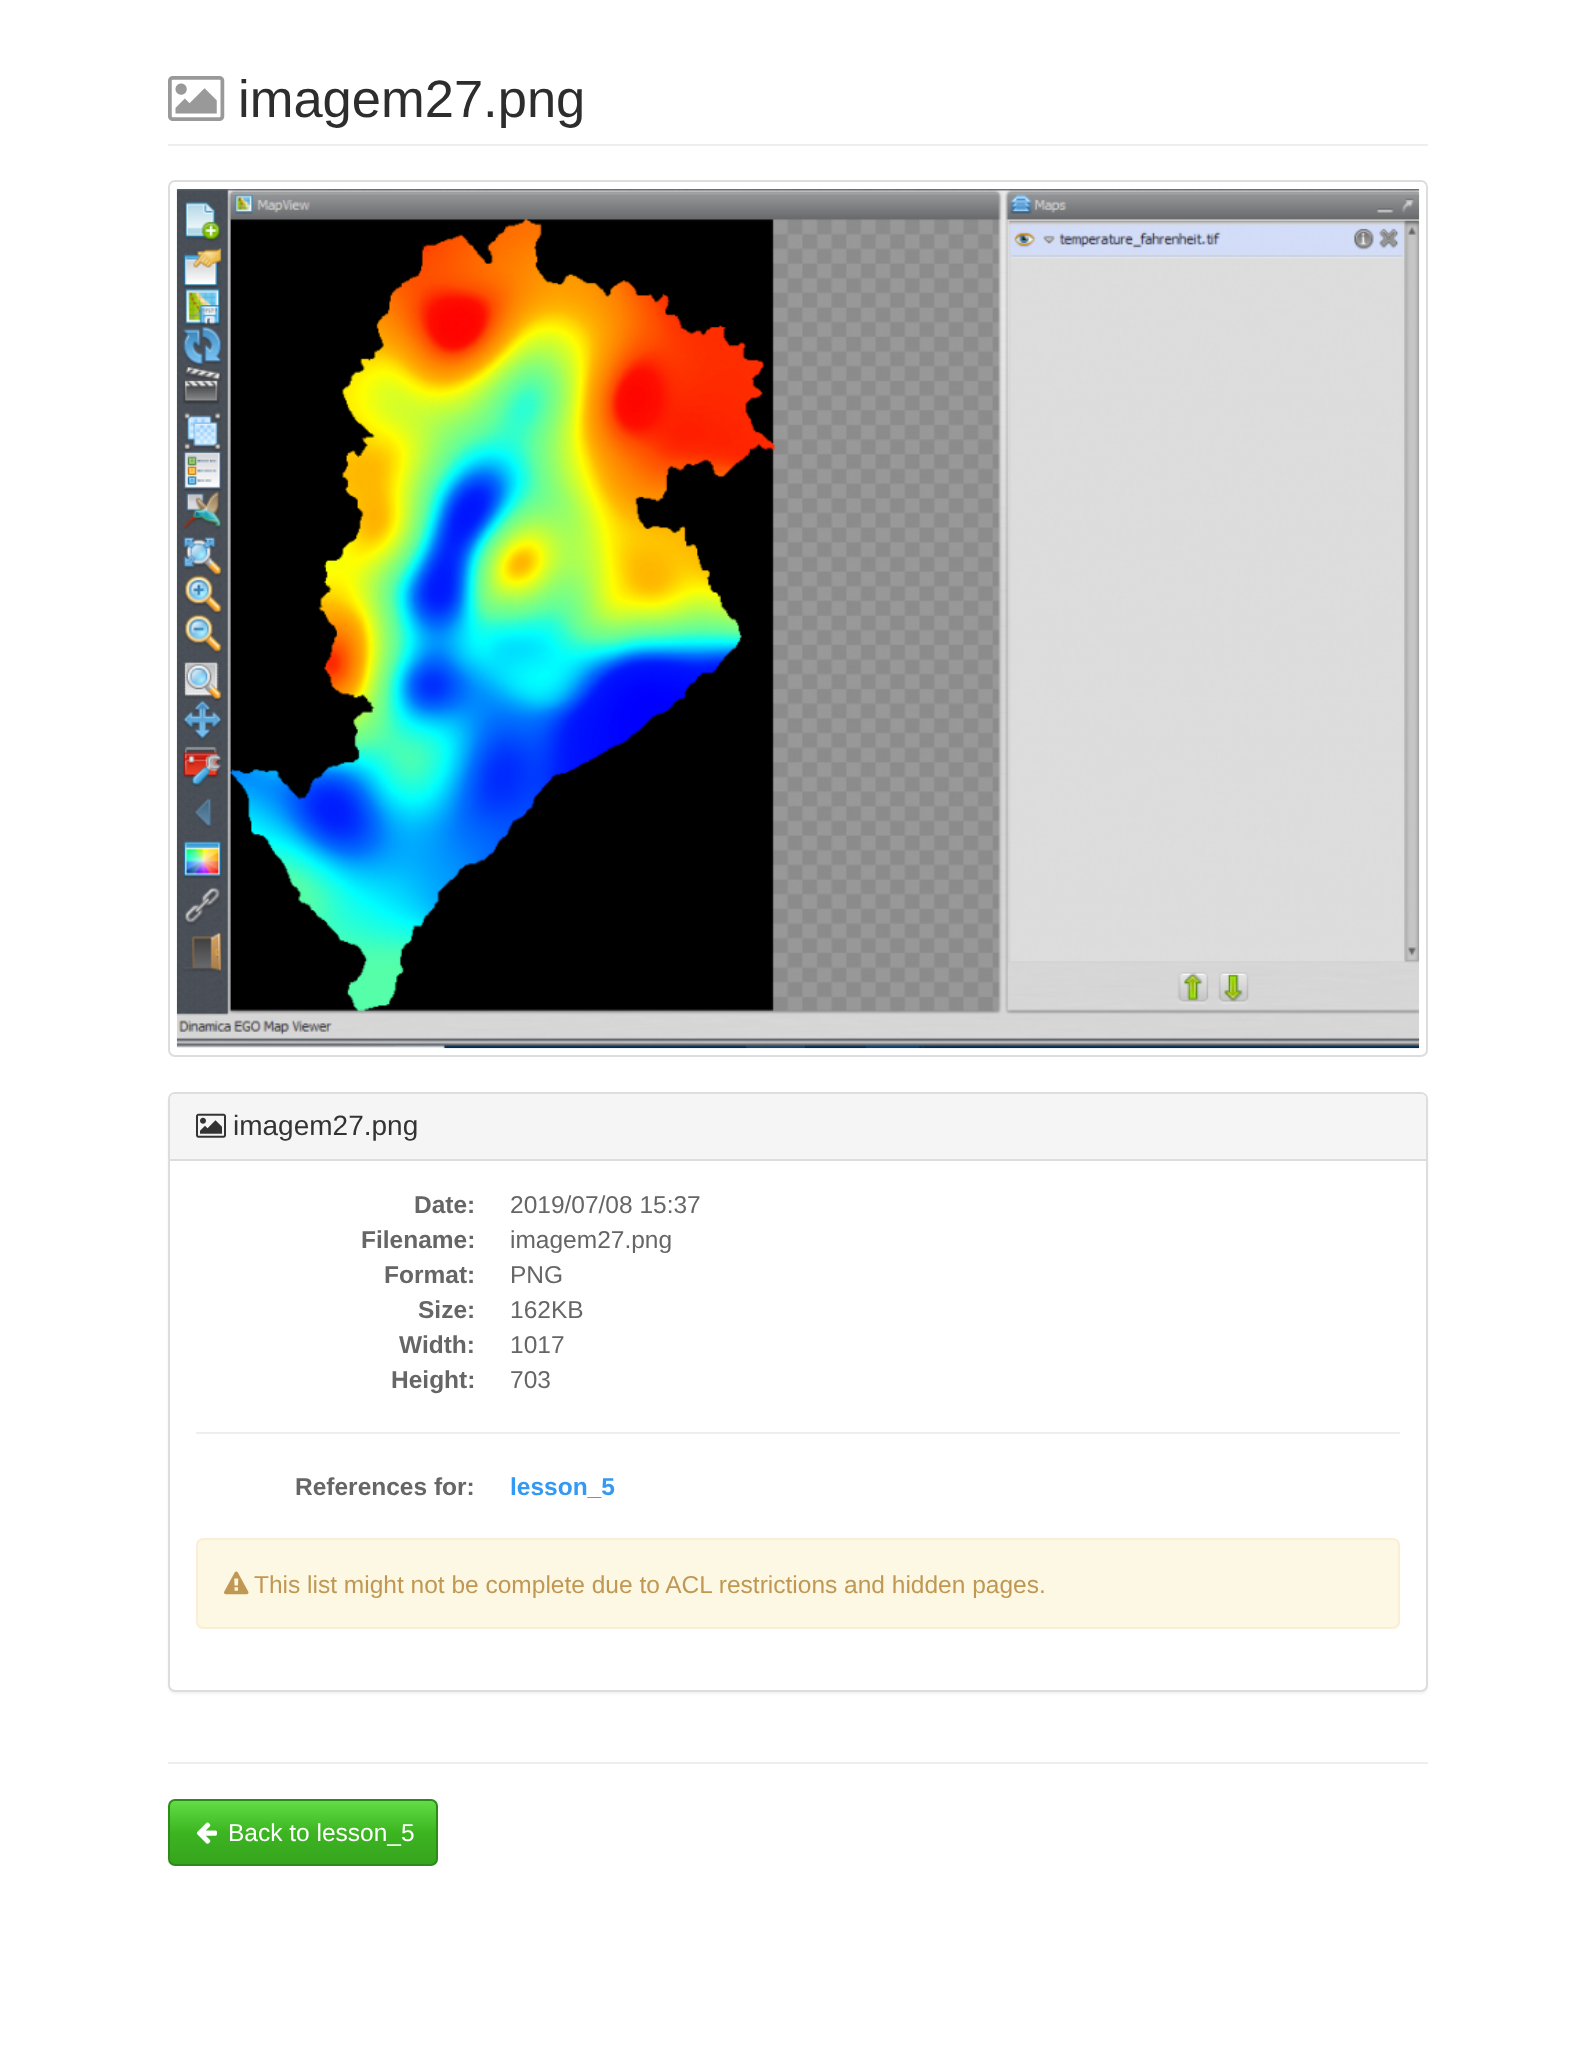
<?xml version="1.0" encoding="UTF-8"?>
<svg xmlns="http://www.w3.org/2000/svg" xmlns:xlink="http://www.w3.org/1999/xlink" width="1594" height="2060">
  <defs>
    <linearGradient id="g1" gradientUnits="userSpaceOnUse" x1="303" y1="1801" x2="303" y2="1864"><stop offset="0" stop-color="#61dd45" /><stop offset="0.5" stop-color="#3cb521" /><stop offset="1" stop-color="#36a41e" /></linearGradient>
  </defs>
  <rect width="100%" height="100%" fill="#ffffff" />
  <rect x="168" y="144" width="1260" height="2" fill="#eeeeee" />
  <image x="168" y="76" width="57" height="45" xlink:href="image1.png" />
  <rect x="169" y="181" width="1258" height="875" rx="6" fill="none" stroke="#dddddd" stroke-width="2" />
  <image x="176" y="189" width="1244" height="860" xlink:href="image2.png" />
  <rect x="168" y="1094" width="1260" height="600" rx="7" fill="#000000" fill-opacity="0.05" filter="blur(1px)" />
  <rect x="169" y="1093" width="1258" height="598" rx="6" fill="#ffffff" stroke="#dddddd" stroke-width="2" />
  <path d="M 175 1094 h 1246 c 3 0 5 2 5 5 v 61 h -1256 v -61 c 0 -3 2 -5 5 -5 z" fill="#f5f5f5" />
  <rect x="170" y="1159" width="1256" height="2" fill="#dddddd" />
  <image x="196" y="1113" width="30" height="25" xlink:href="image3.png" />
  <rect x="196" y="1432" width="1204" height="2" fill="#eeeeee" />
  <rect x="197" y="1539" width="1202" height="89" rx="6" fill="#fcf8e3" stroke="#fbeed5" stroke-width="2" />
  <image x="224" y="1571" width="25" height="24" xlink:href="image4.png" />
  <rect x="168" y="1762" width="1260" height="2" fill="#eeeeee" />
  <rect x="170" y="1801" width="266" height="63" fill="url(#g1)" />
  <rect x="169" y="1800" width="268" height="65" rx="6" fill="none" stroke="#2e8a19" stroke-width="2" />
  <image x="196" y="1822" width="21" height="22" xlink:href="image5.png" />
  <text x="238" y="117" style="font-family: Liberation Sans; font-size: 52.5px; fill: #2d2d2d">imagem27.png</text>
  <text x="233" y="1135" style="font-family: Liberation Sans; font-size: 28px; fill: #333333">imagem27.png</text>
  <text x="414" y="1213" style="font-family: Liberation Sans; font-size: 24.5px; font-weight: bold; fill: #666666">Date:</text>
  <text x="510" y="1213" style="font-family: Liberation Sans; font-size: 24.5px; fill: #666666">2019/07/08 15:37</text>
  <text x="361" y="1248" style="font-family: Liberation Sans; font-size: 24.5px; font-weight: bold; fill: #666666">Filename:</text>
  <text x="510" y="1248" style="font-family: Liberation Sans; font-size: 24.5px; fill: #666666">imagem27.png</text>
  <text x="384" y="1283" style="font-family: Liberation Sans; font-size: 24.5px; font-weight: bold; fill: #666666">Format:</text>
  <text x="510" y="1283" style="font-family: Liberation Sans; font-size: 24.5px; fill: #666666">PNG</text>
  <text x="418" y="1318" style="font-family: Liberation Sans; font-size: 24.5px; font-weight: bold; fill: #666666">Size:</text>
  <text x="510" y="1318" style="font-family: Liberation Sans; font-size: 24.5px; fill: #666666">162KB</text>
  <text x="399" y="1353" style="font-family: Liberation Sans; font-size: 24.5px; font-weight: bold; fill: #666666">Width:</text>
  <text x="510" y="1353" style="font-family: Liberation Sans; font-size: 24.5px; fill: #666666">1017</text>
  <text x="391" y="1388" style="font-family: Liberation Sans; font-size: 24.5px; font-weight: bold; fill: #666666">Height:</text>
  <text x="510" y="1388" style="font-family: Liberation Sans; font-size: 24.5px; fill: #666666">703</text>
  <text x="295" y="1495" style="font-family: Liberation Sans; font-size: 24.5px; font-weight: bold; fill: #666666">References for:</text>
  <text x="510" y="1495" style="font-family: Liberation Sans; font-size: 24.5px; font-weight: bold; fill: #3399f3">lesson_5</text>
  <text x="254" y="1593" style="font-family: Liberation Sans; font-size: 24.5px; fill: #c09853">This list might not be complete due to ACL restrictions and hidden pages.</text>
  <text x="228" y="1841" style="font-family: Liberation Sans; font-size: 24.5px; fill: #ffffff">Back to lesson_5</text>
</svg>
